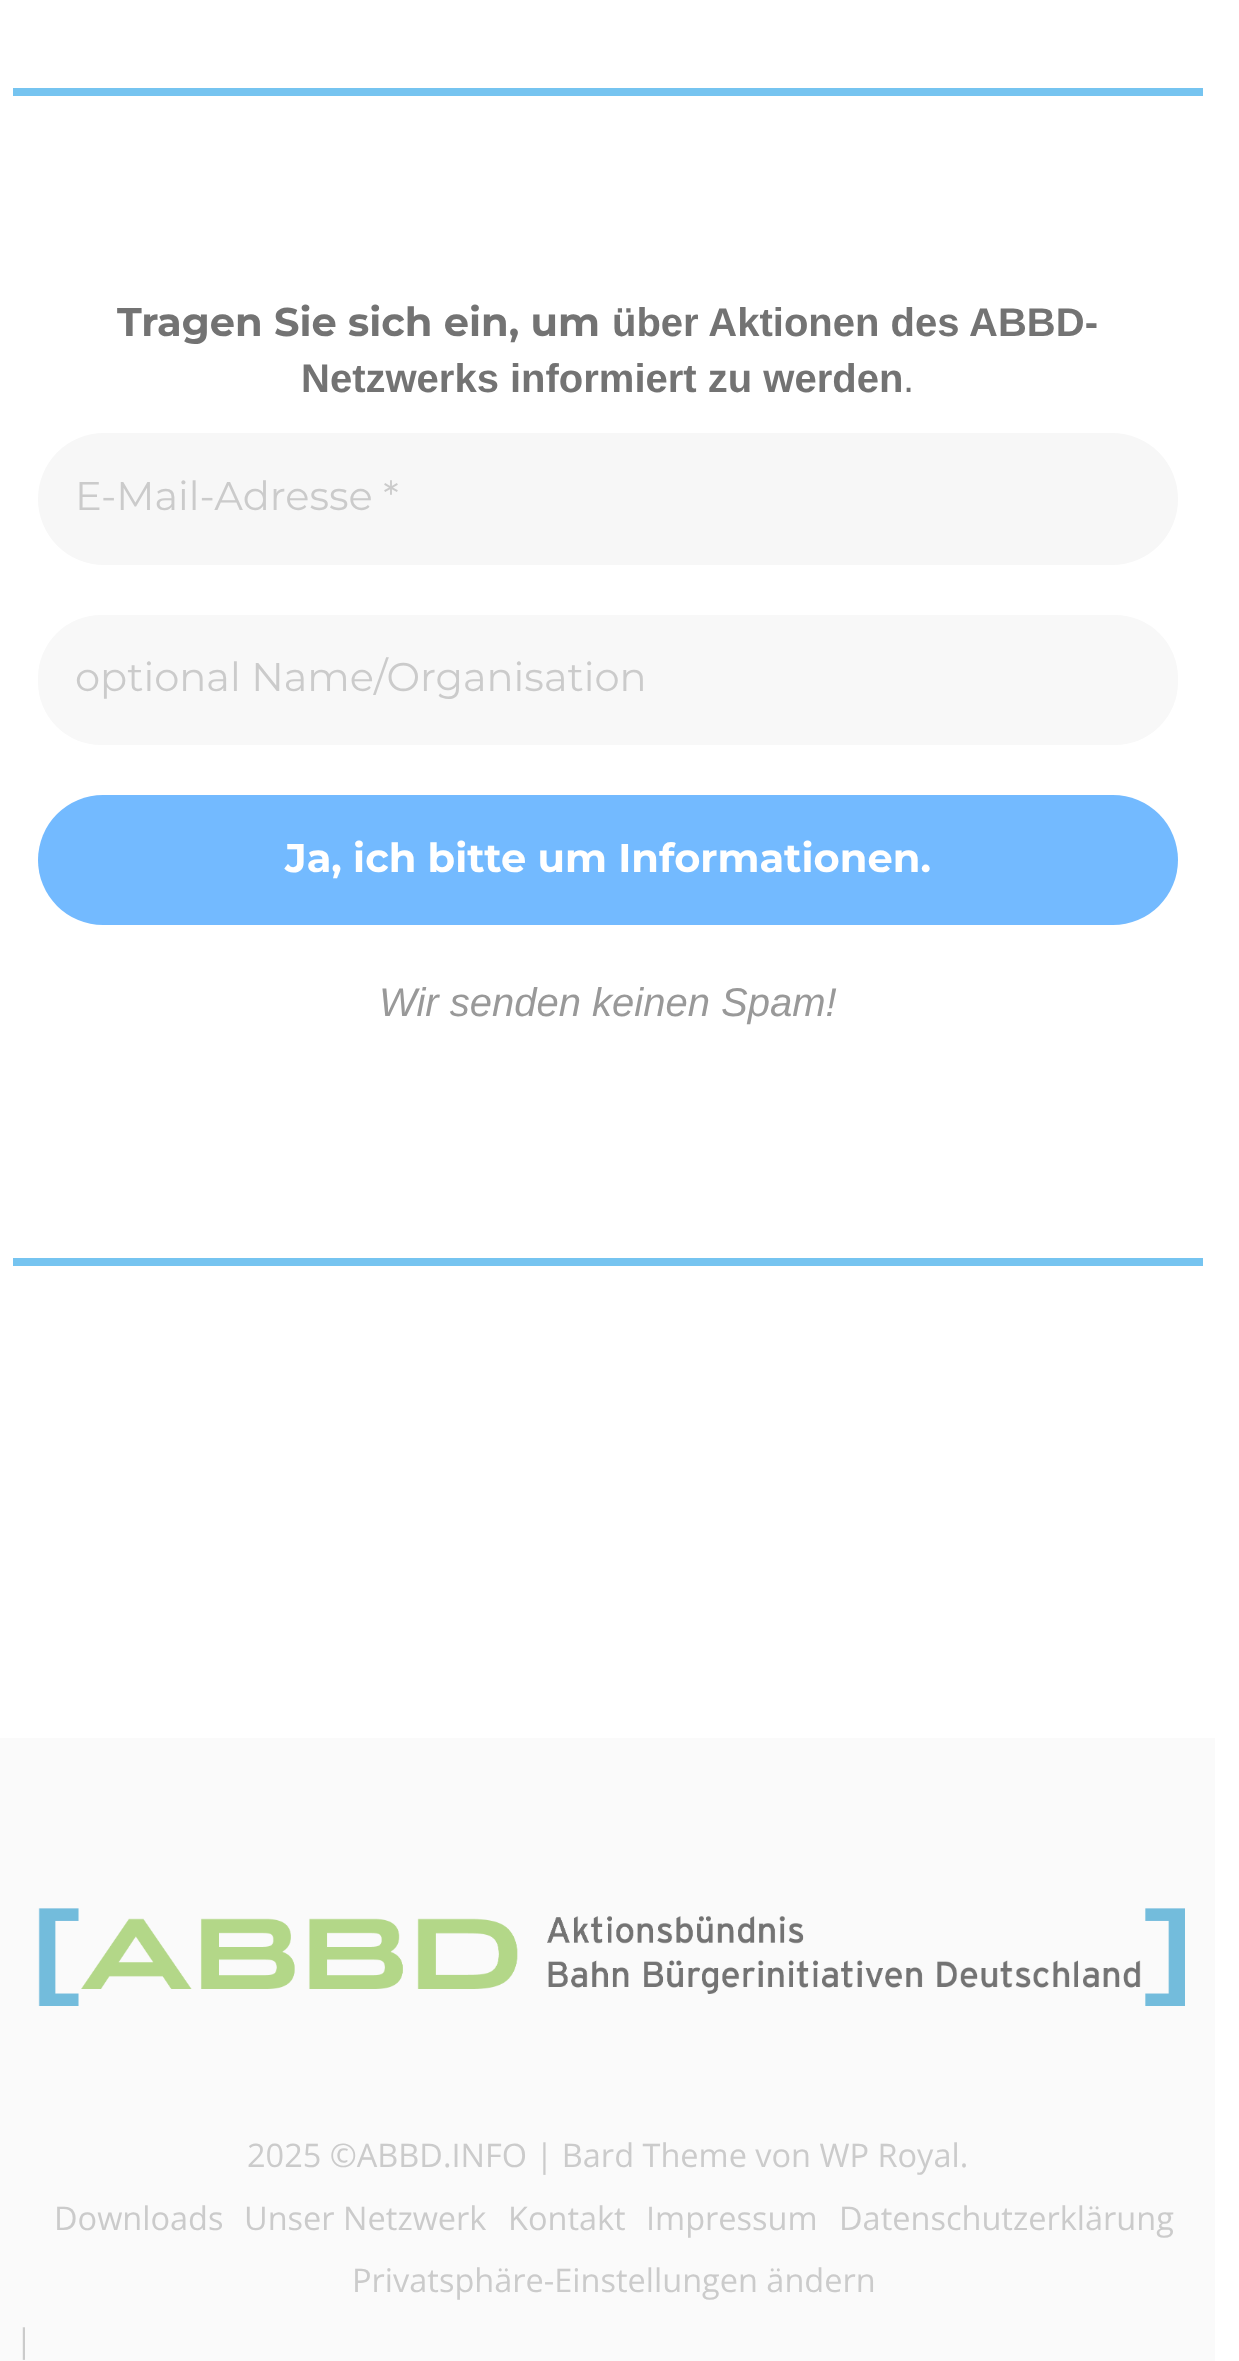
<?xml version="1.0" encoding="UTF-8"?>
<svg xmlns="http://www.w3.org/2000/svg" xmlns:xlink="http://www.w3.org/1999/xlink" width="1239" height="2361">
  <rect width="100%" height="100%" fill="#ffffff" />
  <rect x="13" y="88" width="1190" height="8" fill="#76c4f0" />
  <rect x="38" y="433" width="1140" height="132" rx="66" fill="#f7f7f7" />
  <rect x="38" y="615" width="1140" height="130" rx="63" fill="#f8f8f8" />
  <rect x="38" y="795" width="1140" height="130" rx="65" fill="#73baff" />
  <rect x="13" y="1258" width="1190" height="8" fill="#76c4f0" />
  <rect y="1738" width="1215" height="623" fill="#fafafa" />
  <image x="38" y="1908" width="1147" height="98" xlink:href="image1.png" />
  <text x="117" y="336" style="font-family: Montserrat; font-size: 40px; font-weight: bold; fill: #737373">Tragen Sie sich ein, um</text>
  <text x="612" y="336" style="font-family: Liberation Sans; font-size: 40px; font-weight: bold; fill: #737373">über Aktionen des ABBD-</text>
  <text x="301" y="392" style="font-family: Liberation Sans; font-size: 40px; font-weight: bold; fill: #737373">Netzwerks informiert zu werden</text>
  <text x="903" y="392" style="font-family: Liberation Sans; font-size: 40px; fill: #737373">.</text>
  <text x="75" y="510" style="font-family: Montserrat; font-size: 40px; fill: #cbcbcb">E-Mail-Adresse *</text>
  <text x="75" y="691" style="font-family: Montserrat; font-size: 40px; fill: #cbcbcb">optional Name/Organisation</text>
  <text x="285" y="872" style="font-family: Montserrat; font-size: 40px; font-weight: bold; fill: #ffffff">Ja, ich bitte um Informationen.</text>
  <text x="379" y="1016" style="font-family: Liberation Sans; font-size: 40px; font-style: italic; fill: #999999">Wir senden keinen Spam!</text>
  <text x="247" y="2167" style="font-family: Open Sans; font-size: 32.5px; fill: #cbcbcb">2025 ©ABBD.INFO | Bard Theme von WP Royal.</text>
  <text x="54" y="2230" style="font-family: Open Sans; font-size: 32.5px; fill: #cbcbcb">Downloads</text>
  <text x="244" y="2230" style="font-family: Open Sans; font-size: 32.5px; fill: #cbcbcb">Unser Netzwerk</text>
  <text x="508" y="2230" style="font-family: Open Sans; font-size: 32.5px; fill: #cbcbcb">Kontakt</text>
  <text x="646" y="2230" style="font-family: Open Sans; font-size: 32.5px; fill: #cbcbcb">Impressum</text>
  <text x="839" y="2230" style="font-family: Open Sans; font-size: 32.5px; fill: #cbcbcb">Datenschutzerklärung</text>
  <text x="352" y="2292" style="font-family: Open Sans; font-size: 32.5px; fill: #cbcbcb">Privatsphäre-Einstellungen ändern</text>
  <text x="15" y="2352" style="font-family: Open Sans; font-size: 32.5px; fill: #cbcbcb">|</text>
</svg>
